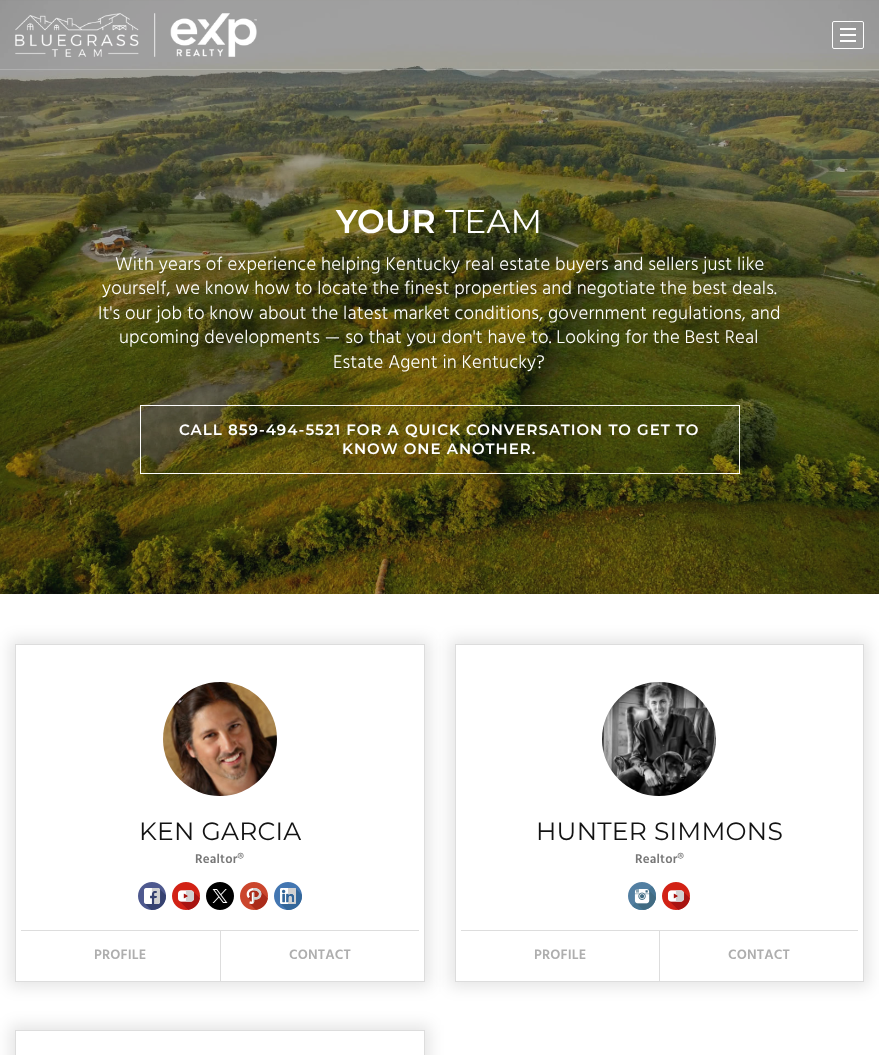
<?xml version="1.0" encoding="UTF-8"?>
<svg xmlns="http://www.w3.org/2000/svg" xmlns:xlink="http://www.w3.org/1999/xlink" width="879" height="1055">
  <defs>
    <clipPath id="clip1"><path d="M 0 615 h 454 v 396 h -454 z m 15 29 h 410 v 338 h -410 z" clip-rule="evenodd" /></clipPath>
    <clipPath id="clip2"><path d="M 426 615 h 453 v 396 h -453 z m 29 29 h 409 v 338 h -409 z" clip-rule="evenodd" /></clipPath>
    <clipPath id="clip3"><path d="M 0 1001 h 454 v 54 h -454 z m 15 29 h 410 v 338 h -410 z" clip-rule="evenodd" /></clipPath>
  </defs>
  <rect width="100%" height="100%" fill="#ffffff" />
  <image x="0" y="0" width="879" height="594" xlink:href="image2.png" />
  <rect y="69" width="879" height="1" fill="#ffffff" fill-opacity="0.2" />
  <image x="15" y="13" width="242" height="44" xlink:href="image1.png" />
  <rect x="832.5" y="21.5" width="31" height="27" rx="1.5" fill="none" stroke="#ffffff" />
  <rect x="840" y="28" width="16" height="2" fill="#ffffff" />
  <rect x="840" y="34" width="16" height="2" fill="#ffffff" />
  <rect x="840" y="40" width="16" height="2" fill="#ffffff" />
  <rect x="140.5" y="405.5" width="599" height="68" fill="none" stroke="#ffffff" />
  <g clip-path="url(#clip1)">
    <rect x="10" y="639" width="420" height="348" fill="#000000" fill-opacity="0.1" filter="blur(7.5px)" />
  </g>
  <rect x="15.5" y="644.5" width="409" height="337" fill="none" stroke="#dddddd" />
  <image x="163" y="682" width="114" height="114" xlink:href="image3.png" />
  <image x="138" y="882" width="28" height="28" xlink:href="image4.png" />
  <image x="172" y="882" width="28" height="28" xlink:href="image5.png" />
  <image x="206" y="882" width="28" height="28" xlink:href="image6.png" />
  <image x="240" y="882" width="28" height="28" xlink:href="image7.png" />
  <image x="274" y="882" width="28" height="28" xlink:href="image8.png" />
  <rect x="21" y="930" width="398" height="1" fill="#dddddd" />
  <rect x="220" y="931" width="1" height="50" fill="#dddddd" />
  <g clip-path="url(#clip2)">
    <rect x="450" y="639" width="419" height="348" fill="#000000" fill-opacity="0.1" filter="blur(7.5px)" />
  </g>
  <rect x="455.5" y="644.5" width="408" height="337" fill="none" stroke="#dddddd" />
  <image x="602" y="682" width="114" height="114" xlink:href="image9.png" />
  <image x="628" y="882" width="28" height="28" xlink:href="image10.png" />
  <image x="662" y="882" width="28" height="28" xlink:href="image5.png" />
  <rect x="461" y="930" width="397" height="1" fill="#dddddd" />
  <rect x="659" y="931" width="1" height="50" fill="#dddddd" />
  <g clip-path="url(#clip3)">
    <rect x="10" y="1025" width="420" height="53" fill="#000000" fill-opacity="0.1" filter="blur(7.5px)" />
  </g>
  <rect x="15.5" y="1030.5" width="409" height="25" fill="none" stroke="#dddddd" />
  <text x="336" y="233" style="font-family: Montserrat; font-size: 33px; font-weight: 600; letter-spacing: 0.25px; fill: #ffffff">YOUR</text>
  <text x="445" y="233" style="font-family: Montserrat; font-size: 33px; letter-spacing: 0.25px; fill: #ffffff">TEAM</text>
  <text x="115" y="270" style="font-family: Hind; font-size: 18.85px; font-weight: 300; letter-spacing: 0.15px; fill: #ffffff">With years of experience helping Kentucky real estate buyers and sellers just like</text>
  <text x="102" y="294" style="font-family: Hind; font-size: 18.85px; font-weight: 300; letter-spacing: 0.15px; fill: #ffffff">yourself, we know how to locate the finest properties and negotiate the best deals.</text>
  <text x="98" y="319" style="font-family: Hind; font-size: 18.85px; font-weight: 300; letter-spacing: 0.15px; fill: #ffffff">It's our job to know about the latest market conditions, government regulations, and</text>
  <text x="119" y="343" style="font-family: Hind; font-size: 18.85px; font-weight: 300; letter-spacing: 0.15px; fill: #ffffff">upcoming developments — so that you don't have to. Looking for the Best Real</text>
  <text x="333" y="368" style="font-family: Hind; font-size: 18.85px; font-weight: 300; letter-spacing: 0.15px; fill: #ffffff">Estate Agent in Kentucky?</text>
  <text x="179" y="435" style="font-family: Montserrat; font-size: 15px; font-weight: 600; letter-spacing: 1px; fill: #ffffff">CALL 859-494-5521 FOR A QUICK CONVERSATION TO GET TO</text>
  <text x="342" y="454" style="font-family: Montserrat; font-size: 15px; font-weight: 600; letter-spacing: 1px; fill: #ffffff">KNOW ONE ANOTHER.</text>
  <text x="139" y="840" style="font-family: Montserrat; font-size: 25px; letter-spacing: 0.25px; fill: #131313">KEN GARCIA</text>
  <text x="195" y="863" style="font-family: Hind; font-size: 13px; font-weight: 600; letter-spacing: 0.15px; fill: #787878">Realtor®</text>
  <text x="94" y="959" style="font-family: Hind; font-size: 14px; font-weight: 600; letter-spacing: 0.15px; fill: #aeaeae">PROFILE</text>
  <text x="289" y="959" style="font-family: Hind; font-size: 14px; font-weight: 600; letter-spacing: 0.15px; fill: #aeaeae">CONTACT</text>
  <text x="536" y="840" style="font-family: Montserrat; font-size: 25px; letter-spacing: 0.25px; fill: #131313">HUNTER SIMMONS</text>
  <text x="635" y="863" style="font-family: Hind; font-size: 13px; font-weight: 600; letter-spacing: 0.15px; fill: #787878">Realtor®</text>
  <text x="534" y="959" style="font-family: Hind; font-size: 14px; font-weight: 600; letter-spacing: 0.15px; fill: #aeaeae">PROFILE</text>
  <text x="728" y="959" style="font-family: Hind; font-size: 14px; font-weight: 600; letter-spacing: 0.15px; fill: #aeaeae">CONTACT</text>
</svg>
